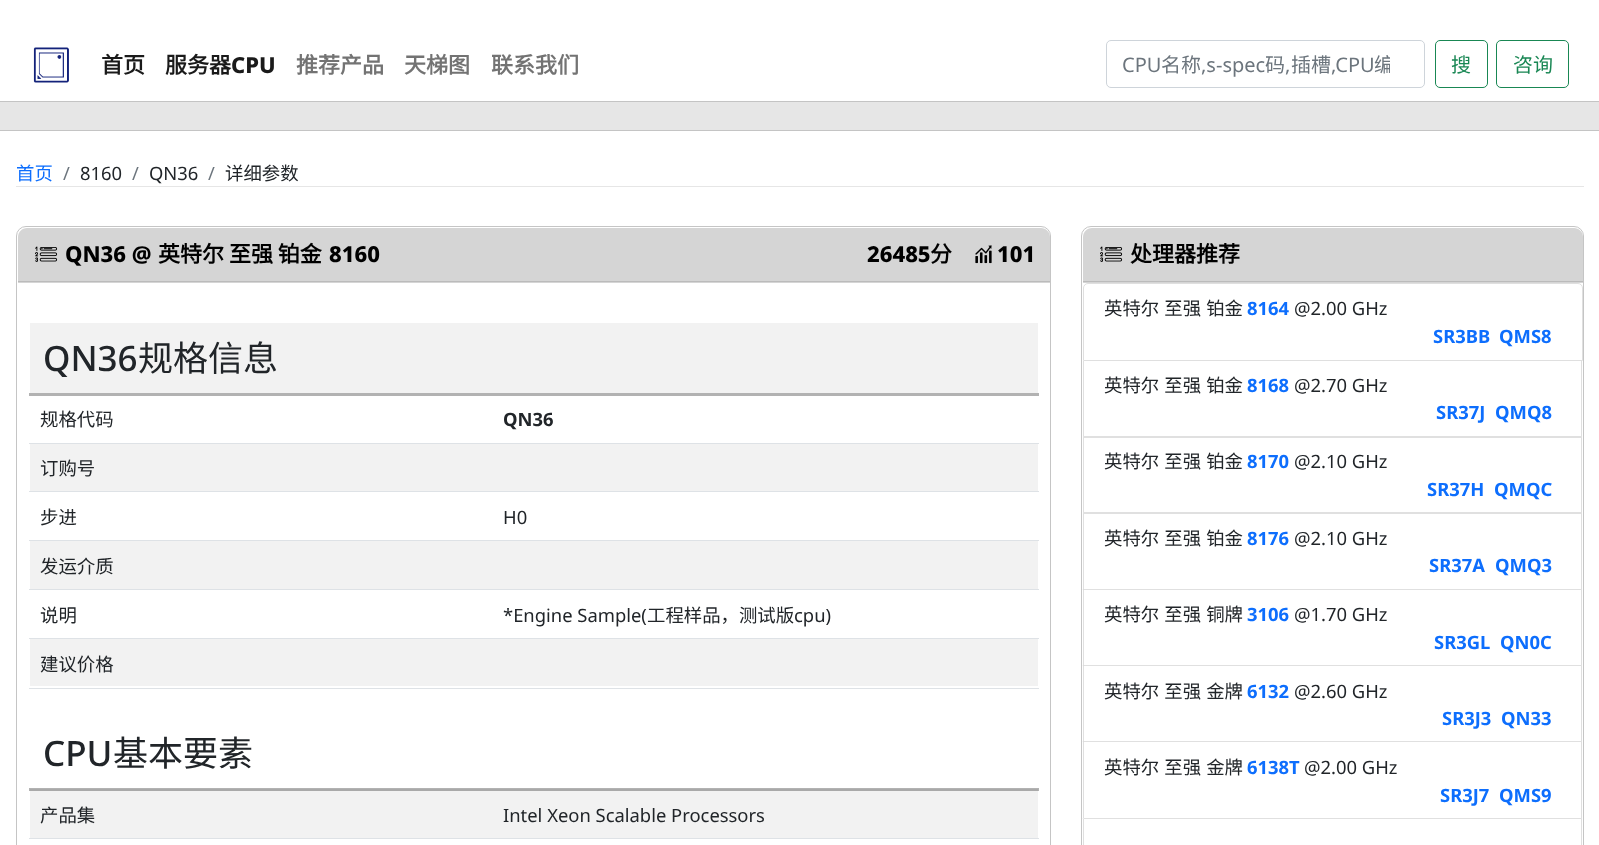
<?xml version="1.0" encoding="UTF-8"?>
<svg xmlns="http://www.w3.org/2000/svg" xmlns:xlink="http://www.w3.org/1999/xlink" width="1599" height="845">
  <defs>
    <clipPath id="clip1"><rect x="1123" y="48" width="267" height="30" /></clipPath>
  </defs>
  <rect width="100%" height="100%" fill="#ffffff" />
  <rect x="30" y="791" width="1008" height="47" fill="#f2f2f2" />
  <image x="33" y="47" width="36" height="36" xlink:href="image1.png" />
  <rect x="1106.5" y="40.5" width="318" height="47" rx="4.5" fill="none" stroke="#ced4da" />
  <rect x="1435.5" y="40.5" width="52" height="47" rx="4.5" fill="none" stroke="#198754" />
  <rect x="1496.5" y="40.5" width="72" height="47" rx="4.5" fill="none" stroke="#198754" />
  <rect y="102" width="1599" height="28" fill="#e6e6e6" />
  <rect y="101" width="1599" height="1" fill="#c4c4c4" />
  <rect y="130" width="1599" height="1" fill="#c4c4c4" />
  <rect x="16" y="186" width="1568" height="1" fill="#e6e6e6" />
  <rect x="16.5" y="226.5" width="1034" height="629" rx="9.5" fill="none" stroke="#c5c5c5" />
  <path d="M 27 228 h 1014 c 5 0 9 4 9 9 v 46 h -1032 v -46 c 0 -5 4 -9 9 -9 z" fill="#d5d5d5" />
  <rect x="18" y="281" width="1032" height="1" fill="#bbbbbb" />
  <image x="35" y="246" width="23" height="16" xlink:href="image2.png" />
  <image x="975" y="245" width="17" height="19" xlink:href="image3.png" />
  <rect x="29" y="393" width="1010" height="3" fill="#b2b2b2" />
  <rect x="30" y="323" width="1008" height="70" fill="#f2f2f2" />
  <rect x="29" y="443" width="1010" height="1" fill="#dee2e6" />
  <rect x="30" y="444" width="1008" height="47" fill="#f2f2f2" />
  <rect x="29" y="491" width="1010" height="1" fill="#dee2e6" />
  <rect x="29" y="540" width="1010" height="1" fill="#dee2e6" />
  <rect x="30" y="541" width="1008" height="48" fill="#f2f2f2" />
  <rect x="29" y="589" width="1010" height="1" fill="#dee2e6" />
  <rect x="29" y="638" width="1010" height="1" fill="#dee2e6" />
  <rect x="30" y="639" width="1008" height="47" fill="#f2f2f2" />
  <rect x="29" y="688" width="1010" height="1" fill="#dee2e6" />
  <rect x="29" y="788" width="1010" height="3" fill="#b2b2b2" />
  <rect x="30" y="789" width="1008" height="2" fill="#a9a9a9" />
  <rect x="29" y="838" width="1010" height="1" fill="#dee2e6" />
  <rect x="1081.5" y="226.5" width="502" height="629" rx="9.5" fill="none" stroke="#c5c5c5" />
  <path d="M 1092 228 h 482 c 5 0 9 4 9 9 v 46 h -500 v -46 c 0 -5 4 -9 9 -9 z" fill="#d5d5d5" />
  <rect x="1083" y="281" width="500" height="1" fill="#bbbbbb" />
  <image x="1100" y="246" width="23" height="16" xlink:href="image2.png" />
  <path d="M 1088 283.5 h 490 c 2.5 0 4.5 2 4.5 4.5 v 72.5 h -499 v -72.5 c 0 -2.5 2 -4.5 4.5 -4.5 z" fill="none" stroke="#dfdfdf" />
  <path d="M 1582 361 v 77 l -1 -2 v -75 z" fill="#dfdfdf" />
  <path d="M 1582 438 h -499 v -1 l 1 -1 h 497 z" fill="#000000" fill-opacity="0.12" />
  <path d="M 1083 437 v -76 h 1 v 75 z" fill="#000000" fill-opacity="0.12" />
  <path d="M 1582 438 v 76 l -1 -2 v -74 z" fill="#dfdfdf" />
  <path d="M 1582 514 h -499 v -1 l 1 -1 h 497 z" fill="#000000" fill-opacity="0.12" />
  <path d="M 1083 513 v -75 h 1 v 74 z" fill="#000000" fill-opacity="0.12" />
  <path d="M 1582 514 v 76 l -1 -1 v -75 z" fill="#dfdfdf" />
  <path d="M 1582 590 h -500 l 2 -1 h 497 z" fill="#000000" fill-opacity="0.12" />
  <path d="M 1083 590 v -76 h 1 v 75 z" fill="#000000" fill-opacity="0.12" />
  <path d="M 1582 590 v 76 l -1 -1 v -75 z" fill="#dfdfdf" />
  <path d="M 1582 666 h -500 l 2 -1 h 497 z" fill="#000000" fill-opacity="0.12" />
  <path d="M 1083 666 v -76 h 1 v 75 z" fill="#000000" fill-opacity="0.12" />
  <path d="M 1582 666 v 76 l -1 -1 v -75 z" fill="#dfdfdf" />
  <path d="M 1582 742 h -500 l 2 -1 h 497 z" fill="#000000" fill-opacity="0.12" />
  <path d="M 1083 742 v -76 h 1 v 75 z" fill="#000000" fill-opacity="0.12" />
  <path d="M 1582 742 v 77 l -1 -1 v -76 z" fill="#dfdfdf" />
  <path d="M 1582 819 h -500 l 2 -1 h 497 z" fill="#000000" fill-opacity="0.12" />
  <rect x="1083" y="742" width="1" height="76" fill="#dfdfdf" />
  <path d="M 1582 819 v 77 l -1 -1 v -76 z" fill="#dfdfdf" />
  <path d="M 1083 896 v -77 h 1 v 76 z" fill="#dfdfdf" />
  <text x="101" y="73" style="font-family: Noto Sans CJK SC; font-size: 22px; font-weight: bold; fill: #1a1a1a">首页</text>
  <text x="165" y="73" style="font-family: Noto Sans CJK SC; font-size: 22px; font-weight: bold; fill: #1a1a1a">服务器</text>
  <text x="231" y="73" style="font-family: Noto Sans; font-size: 22px; font-weight: 800; fill: #1a1a1a">CPU</text>
  <text x="296" y="73" style="font-family: Noto Sans CJK SC; font-size: 22px; font-weight: bold; fill: #737373">推荐产品</text>
  <text x="404" y="73" style="font-family: Noto Sans CJK SC; font-size: 22px; font-weight: bold; fill: #737373">天梯图</text>
  <text x="491" y="73" style="font-family: Noto Sans CJK SC; font-size: 22px; font-weight: bold; fill: #737373">联系我们</text>
  <text x="1122" y="72" style="font-family: Noto Sans; font-size: 20px; fill: #6c757d">CPU</text>
  <text x="1161" y="72" style="font-family: Noto Sans CJK SC; font-size: 20px; fill: #6c757d">名称</text>
  <text x="1201" y="72" style="font-family: Noto Sans; font-size: 20px; fill: #6c757d">,s-spec</text>
  <text x="1265" y="72" style="font-family: Noto Sans CJK SC; font-size: 20px; fill: #6c757d">码</text>
  <text x="1285" y="72" style="font-family: Noto Sans; font-size: 20px; fill: #6c757d">,</text>
  <text x="1291" y="72" style="font-family: Noto Sans CJK SC; font-size: 20px; fill: #6c757d">插槽</text>
  <text x="1331" y="72" style="font-family: Noto Sans; font-size: 20px; fill: #6c757d">,CPU</text>
  <g clip-path="url(#clip1)">
    <text x="1374" y="72" style="font-family: Noto Sans CJK SC; font-size: 20px; fill: #6c757d">编</text>
  </g>
  <text x="1451" y="72" style="font-family: Noto Sans CJK SC; font-size: 20px; fill: #198754">搜</text>
  <text x="1513" y="72" style="font-family: Noto Sans CJK SC; font-size: 20px; fill: #198754">咨询</text>
  <text x="16" y="180" style="font-family: Noto Sans CJK SC; font-size: 18.4px; fill: #0d6efd">首页</text>
  <text x="63" y="180" style="font-family: Noto Sans; font-size: 18.4px; fill: #6c757d">/</text>
  <text x="80" y="180" style="font-family: Noto Sans; font-size: 18.4px; fill: #212529">8160</text>
  <text x="132" y="180" style="font-family: Noto Sans; font-size: 18.4px; fill: #6c757d">/</text>
  <text x="149" y="180" style="font-family: Noto Sans; font-size: 18.4px; fill: #212529">QN36</text>
  <text x="208" y="180" style="font-family: Noto Sans; font-size: 18.4px; fill: #6c757d">/</text>
  <text x="225" y="180" style="font-family: Noto Sans CJK SC; font-size: 18.4px; fill: #212529">详细参数</text>
  <text x="65" y="262" style="font-family: Noto Sans; font-size: 22px; font-weight: 800; fill: #000000">QN36 @</text>
  <text x="158" y="262" style="font-family: Noto Sans CJK SC; font-size: 22px; font-weight: bold; fill: #000000">英特尔 至强 铂金</text>
  <text x="329" y="262" style="font-family: Noto Sans; font-size: 22px; font-weight: 800; fill: #000000">8160</text>
  <text x="867" y="262" style="font-family: Noto Sans; font-size: 22px; font-weight: 800; fill: #000000">26485</text>
  <text x="930" y="262" style="font-family: Noto Sans CJK SC; font-size: 22px; font-weight: bold; fill: #000000">分</text>
  <text x="997" y="262" style="font-family: Noto Sans; font-size: 22px; font-weight: 800; fill: #000000">101</text>
  <text x="43" y="371" style="font-family: Noto Sans; font-size: 35px; font-weight: 500; fill: #212529">QN36</text>
  <text x="138" y="371" style="font-family: Noto Sans CJK SC; font-size: 35px; fill: #212529">规格信息</text>
  <text x="40" y="426" style="font-family: Noto Sans CJK SC; font-size: 18.4px; fill: #212529">规格代码</text>
  <text x="503" y="426" style="font-family: Noto Sans; font-size: 18.4px; font-weight: bold; fill: #212529">QN36</text>
  <text x="40" y="475" style="font-family: Noto Sans CJK SC; font-size: 18.4px; fill: #212529">订购号</text>
  <text x="40" y="524" style="font-family: Noto Sans CJK SC; font-size: 18.4px; fill: #212529">步进</text>
  <text x="503" y="524" style="font-family: Noto Sans; font-size: 18.4px; fill: #212529">H0</text>
  <text x="40" y="573" style="font-family: Noto Sans CJK SC; font-size: 18.4px; fill: #212529">发运介质</text>
  <text x="40" y="622" style="font-family: Noto Sans CJK SC; font-size: 18.4px; fill: #212529">说明</text>
  <text x="503" y="622" style="font-family: Noto Sans; font-size: 18.4px; fill: #212529">*Engine Sample(</text>
  <text x="647" y="622" style="font-family: Noto Sans CJK SC; font-size: 18.4px; fill: #212529">工程样品，测试版</text>
  <text x="794" y="622" style="font-family: Noto Sans; font-size: 18.4px; fill: #212529">cpu)</text>
  <text x="40" y="671" style="font-family: Noto Sans CJK SC; font-size: 18.4px; fill: #212529">建议价格</text>
  <text x="43" y="766" style="font-family: Noto Sans; font-size: 35px; font-weight: 500; fill: #212529">CPU</text>
  <text x="113" y="766" style="font-family: Noto Sans CJK SC; font-size: 35px; fill: #212529">基本要素</text>
  <text x="40" y="822" style="font-family: Noto Sans CJK SC; font-size: 18.4px; fill: #212529">产品集</text>
  <text x="503" y="822" style="font-family: Noto Sans; font-size: 18.4px; fill: #212529">Intel Xeon Scalable Processors</text>
  <text x="1130" y="262" style="font-family: Noto Sans CJK SC; font-size: 22px; font-weight: bold; fill: #000000">处理器推荐</text>
  <text x="1104" y="315" word-spacing="1" style="font-family: Noto Sans CJK SC; font-size: 18.4px; fill: #212529">英特尔 至强 铂金</text>
  <text x="1247" y="315" style="font-family: Noto Sans; font-size: 18.4px; font-weight: bold; fill: #0d6efd">8164</text>
  <text x="1294" y="315" style="font-family: Noto Sans; font-size: 18.4px; fill: #212529">@2.00 GHz</text>
  <text x="1433" y="343" style="font-family: Noto Sans; font-size: 18.4px; font-weight: bold; fill: #0d6efd">SR3BB</text>
  <text x="1499" y="343" style="font-family: Noto Sans; font-size: 18.4px; font-weight: bold; fill: #0d6efd">QMS8</text>
  <text x="1104" y="392" word-spacing="1" style="font-family: Noto Sans CJK SC; font-size: 18.4px; fill: #212529">英特尔 至强 铂金</text>
  <text x="1247" y="392" style="font-family: Noto Sans; font-size: 18.4px; font-weight: bold; fill: #0d6efd">8168</text>
  <text x="1294" y="392" style="font-family: Noto Sans; font-size: 18.4px; fill: #212529">@2.70 GHz</text>
  <text x="1436" y="419" style="font-family: Noto Sans; font-size: 18.4px; font-weight: bold; fill: #0d6efd">SR37J</text>
  <text x="1495" y="419" style="font-family: Noto Sans; font-size: 18.4px; font-weight: bold; fill: #0d6efd">QMQ8</text>
  <text x="1104" y="468" word-spacing="1" style="font-family: Noto Sans CJK SC; font-size: 18.4px; fill: #212529">英特尔 至强 铂金</text>
  <text x="1247" y="468" style="font-family: Noto Sans; font-size: 18.4px; font-weight: bold; fill: #0d6efd">8170</text>
  <text x="1294" y="468" style="font-family: Noto Sans; font-size: 18.4px; fill: #212529">@2.10 GHz</text>
  <text x="1427" y="496" style="font-family: Noto Sans; font-size: 18.4px; font-weight: bold; fill: #0d6efd">SR37H</text>
  <text x="1494" y="496" style="font-family: Noto Sans; font-size: 18.4px; font-weight: bold; fill: #0d6efd">QMQC</text>
  <text x="1104" y="545" word-spacing="1" style="font-family: Noto Sans CJK SC; font-size: 18.4px; fill: #212529">英特尔 至强 铂金</text>
  <text x="1247" y="545" style="font-family: Noto Sans; font-size: 18.4px; font-weight: bold; fill: #0d6efd">8176</text>
  <text x="1294" y="545" style="font-family: Noto Sans; font-size: 18.4px; fill: #212529">@2.10 GHz</text>
  <text x="1429" y="572" style="font-family: Noto Sans; font-size: 18.4px; font-weight: bold; fill: #0d6efd">SR37A</text>
  <text x="1495" y="572" style="font-family: Noto Sans; font-size: 18.4px; font-weight: bold; fill: #0d6efd">QMQ3</text>
  <text x="1104" y="621" word-spacing="1" style="font-family: Noto Sans CJK SC; font-size: 18.4px; fill: #212529">英特尔 至强 铜牌</text>
  <text x="1247" y="621" style="font-family: Noto Sans; font-size: 18.4px; font-weight: bold; fill: #0d6efd">3106</text>
  <text x="1294" y="621" style="font-family: Noto Sans; font-size: 18.4px; fill: #212529">@1.70 GHz</text>
  <text x="1434" y="649" style="font-family: Noto Sans; font-size: 18.4px; font-weight: bold; fill: #0d6efd">SR3GL</text>
  <text x="1500" y="649" style="font-family: Noto Sans; font-size: 18.4px; font-weight: bold; fill: #0d6efd">QN0C</text>
  <text x="1104" y="698" word-spacing="1" style="font-family: Noto Sans CJK SC; font-size: 18.4px; fill: #212529">英特尔 至强 金牌</text>
  <text x="1247" y="698" style="font-family: Noto Sans; font-size: 18.4px; font-weight: bold; fill: #0d6efd">6132</text>
  <text x="1294" y="698" style="font-family: Noto Sans; font-size: 18.4px; fill: #212529">@2.60 GHz</text>
  <text x="1442" y="725" style="font-family: Noto Sans; font-size: 18.4px; font-weight: bold; fill: #0d6efd">SR3J3</text>
  <text x="1501" y="725" style="font-family: Noto Sans; font-size: 18.4px; font-weight: bold; fill: #0d6efd">QN33</text>
  <text x="1104" y="774" word-spacing="1" style="font-family: Noto Sans CJK SC; font-size: 18.4px; fill: #212529">英特尔 至强 金牌</text>
  <text x="1247" y="774" style="font-family: Noto Sans; font-size: 18.4px; font-weight: bold; fill: #0d6efd">6138T</text>
  <text x="1304" y="774" style="font-family: Noto Sans; font-size: 18.4px; fill: #212529">@2.00 GHz</text>
  <text x="1440" y="802" style="font-family: Noto Sans; font-size: 18.4px; font-weight: bold; fill: #0d6efd">SR3J7</text>
  <text x="1499" y="802" style="font-family: Noto Sans; font-size: 18.4px; font-weight: bold; fill: #0d6efd">QMS9</text>
</svg>
